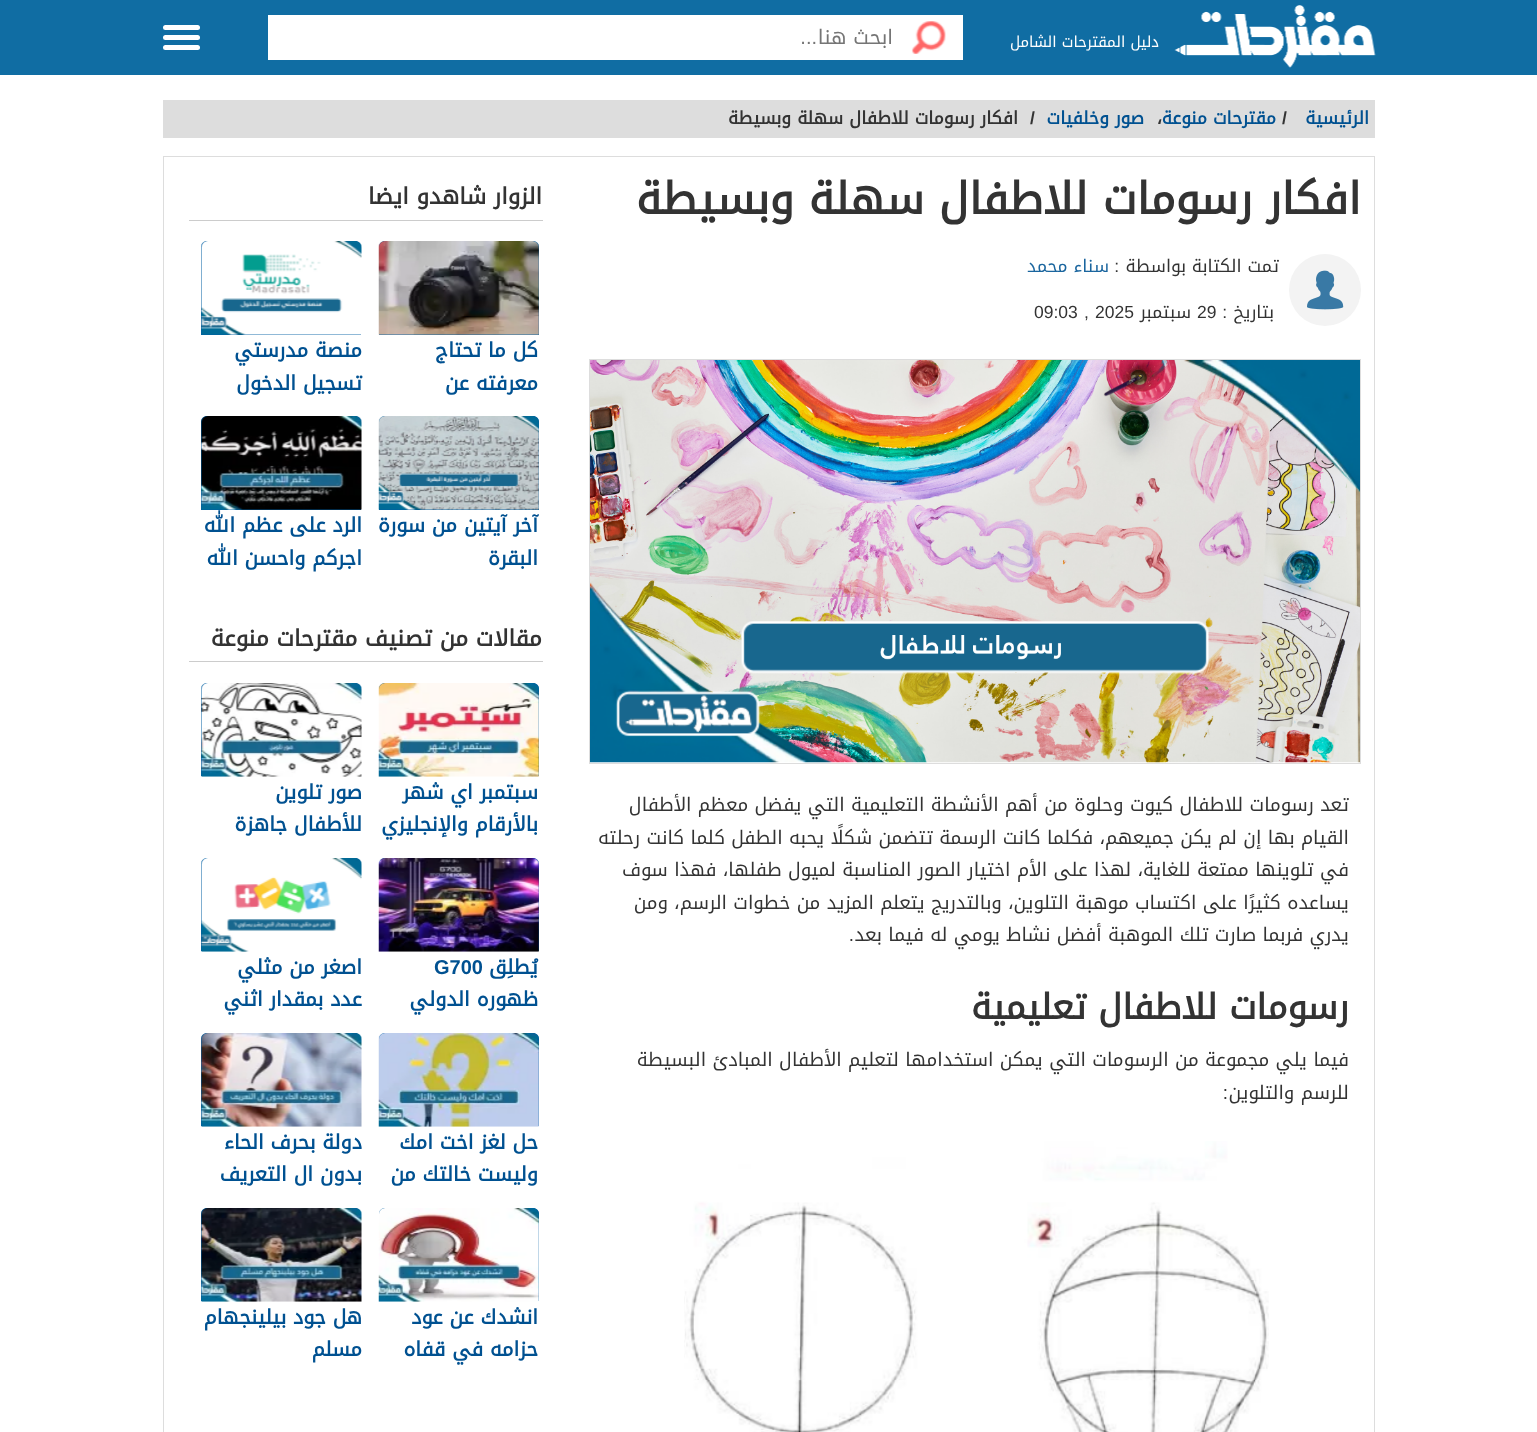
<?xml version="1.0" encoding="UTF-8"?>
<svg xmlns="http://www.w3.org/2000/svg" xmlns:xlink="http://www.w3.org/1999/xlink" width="1537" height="1432">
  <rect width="100%" height="100%" fill="#ffffff" />
  <rect width="1537" height="75" fill="#106da3" />
  <image x="1174" y="5" width="202" height="63" xlink:href="image1.png" />
  <rect x="268" y="15" width="695" height="45" fill="#ffffff" />
  <image x="911" y="21" width="35" height="33" xlink:href="image2.png" />
  <rect x="163" y="25" width="37" height="5" rx="2.5" fill="#ffffff" />
  <rect x="163" y="35" width="37" height="5" rx="2.5" fill="#ffffff" />
  <rect x="163" y="45" width="37" height="5" rx="2.5" fill="#ffffff" />
  <rect x="163" y="100" width="1212" height="38" fill="#dddddd" />
  <rect x="163.5" y="156.5" width="1211" height="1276" fill="none" stroke="#dddddd" />
  <circle cx="1325" cy="290" r="36" fill="#f3f3f3" />
  <image x="1307" y="270" width="37" height="40" xlink:href="image3.png" />
  <rect x="589.5" y="359.5" width="771" height="404" fill="none" stroke="#dddddd" />
  <image x="590" y="360" width="770" height="403" xlink:href="image4.png" />
  <image x="684" y="1141" width="585" height="291" xlink:href="image5.png" />
  <rect x="189" y="220" width="354" height="1" fill="#cccccc" />
  <path d="M 385 241 h 148 c 3.5 0 6 2.5 6 6 v 88 h -160 v -88 c 0 -3.5 2.5 -6 6 -6 z" fill="#005fa3" />
  <image x="378" y="241" width="161" height="94" xlink:href="image6.png" />
  <path d="M 207 241 h 148 c 3.5 0 6 2.5 6 6 v 88 h -160 v -88 c 0 -3.5 2.5 -6 6 -6 z" fill="#005fa3" />
  <image x="201" y="241" width="161" height="94" xlink:href="image7.png" />
  <path d="M 385 416 h 148 c 3.5 0 6 2.5 6 6 v 88 h -160 v -88 c 0 -3.5 2.5 -6 6 -6 z" fill="#005fa3" />
  <image x="378" y="416" width="161" height="94" xlink:href="image8.png" />
  <path d="M 207 416 h 148 c 3.5 0 6 2.5 6 6 v 88 h -160 v -88 c 0 -3.5 2.5 -6 6 -6 z" fill="#005fa3" />
  <image x="201" y="416" width="161" height="94" xlink:href="image9.png" />
  <rect x="189" y="661" width="354" height="1" fill="#cccccc" />
  <path d="M 385 683 h 148 c 3.5 0 6 2.5 6 6 v 87 h -160 v -87 c 0 -3.5 2.5 -6 6 -6 z" fill="#005fa3" />
  <image x="378" y="683" width="161" height="94" xlink:href="image10.png" />
  <path d="M 207 683 h 148 c 3.5 0 6 2.5 6 6 v 87 h -160 v -87 c 0 -3.5 2.5 -6 6 -6 z" fill="#005fa3" />
  <image x="201" y="683" width="161" height="94" xlink:href="image11.png" />
  <path d="M 385 858 h 148 c 3.5 0 6 2.5 6 6 v 87 h -160 v -87 c 0 -3.5 2.5 -6 6 -6 z" fill="#005fa3" />
  <image x="378" y="858" width="161" height="94" xlink:href="image12.png" />
  <path d="M 207 858 h 148 c 3.5 0 6 2.5 6 6 v 87 h -160 v -87 c 0 -3.5 2.5 -6 6 -6 z" fill="#005fa3" />
  <image x="201" y="858" width="161" height="94" xlink:href="image13.png" />
  <path d="M 385 1033 h 148 c 3.5 0 6 2.5 6 6 v 87 h -160 v -87 c 0 -3.5 2.5 -6 6 -6 z" fill="#005fa3" />
  <image x="378" y="1033" width="161" height="94" xlink:href="image14.png" />
  <path d="M 207 1033 h 148 c 3.5 0 6 2.5 6 6 v 87 h -160 v -87 c 0 -3.5 2.5 -6 6 -6 z" fill="#005fa3" />
  <image x="201" y="1033" width="161" height="94" xlink:href="image15.png" />
  <path d="M 385 1208 h 148 c 3.5 0 6 2.5 6 6 v 87 h -160 v -87 c 0 -3.5 2.5 -6 6 -6 z" fill="#005fa3" />
  <image x="378" y="1208" width="161" height="94" xlink:href="image16.png" />
  <path d="M 207 1208 h 148 c 3.5 0 6 2.5 6 6 v 87 h -160 v -87 c 0 -3.5 2.5 -6 6 -6 z" fill="#005fa3" />
  <image x="201" y="1208" width="161" height="94" xlink:href="image17.png" />
  <text x="1159" y="47" style="font-family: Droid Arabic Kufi; font-size: 15px; direction: rtl; fill: #ffffff">دليل المقترحات الشامل</text>
  <text x="893" y="44" style="font-family: Droid Arabic Kufi; font-size: 20px; direction: rtl; fill: #757575">ابحث هنا</text>
  <text x="817" y="44" style="font-family: Liberation Sans; font-size: 20px; direction: rtl; fill: #757575">...</text>
  <text x="1369" y="124" style="font-family: Droid Arabic Kufi; font-size: 17.5px; font-weight: bold; direction: rtl; fill: #005191">الرئيسية</text>
  <text x="1282" y="124" style="font-family: Liberation Sans; font-size: 17.5px; font-weight: bold; fill: #333333">/</text>
  <text x="1276" y="124" style="font-family: Droid Arabic Kufi; font-size: 17.5px; font-weight: bold; direction: rtl; fill: #005191">مقترحات منوعة</text>
  <text x="1157" y="124" style="font-family: Droid Arabic Kufi; font-size: 17.5px; font-weight: bold; fill: #333333">،</text>
  <text x="1144" y="124" style="font-family: Droid Arabic Kufi; font-size: 17.5px; font-weight: bold; direction: rtl; fill: #005191">صور وخلفيات</text>
  <text x="1030" y="124" style="font-family: Liberation Sans; font-size: 17.5px; font-weight: bold; fill: #333333">/</text>
  <text x="1018" y="124" style="font-family: Droid Arabic Kufi; font-size: 17.5px; font-weight: bold; direction: rtl; fill: #333333">افكار رسومات للاطفال سهلة وبسيطة</text>
  <text x="1361" y="214" style="font-family: Droid Arabic Kufi; font-size: 43.75px; font-weight: bold; direction: rtl; fill: #333333">افكار رسومات للاطفال سهلة وبسيطة</text>
  <text x="1279" y="272" style="font-family: Droid Arabic Kufi; font-size: 17.5px; direction: rtl; fill: #333333">تمت الكتابة بواسطة</text>
  <text x="1119" y="272" style="font-family: Liberation Sans; font-size: 17.5px; direction: rtl; fill: #333333">:</text>
  <text x="1109" y="272" style="font-family: Droid Arabic Kufi; font-size: 17.5px; direction: rtl; fill: #1a659e">سناء محمد</text>
  <text x="1274" y="318" style="font-family: Droid Arabic Kufi; font-size: 17.5px; direction: rtl; fill: #333333">بتاريخ</text>
  <text x="1227" y="318" style="font-family: Liberation Sans; font-size: 17.5px; direction: rtl; fill: #333333">:</text>
  <text x="1197" y="318" style="font-family: Liberation Sans; font-size: 17.5px; fill: #333333">29</text>
  <text x="1191" y="318" style="font-family: Droid Arabic Kufi; font-size: 17.5px; direction: rtl; fill: #333333">سبتمبر</text>
  <text x="1095" y="318" style="font-family: Liberation Sans; font-size: 17.5px; fill: #333333">2025</text>
  <text x="1034" y="318" style="font-family: Liberation Sans; font-size: 17.5px; fill: #333333">09:03</text>
  <text x="1084" y="318" style="font-family: Liberation Sans; font-size: 17.5px; fill: #333333">,</text>
  <text x="1349" y="811" style="font-family: Droid Arabic Kufi; font-size: 18.75px; direction: rtl; fill: #333333">تعد رسومات للاطفال كيوت وحلوة من أهم الأنشطة التعليمية التي يفضل معظم الأطفال</text>
  <text x="1349" y="844" style="font-family: Droid Arabic Kufi; font-size: 18.75px; direction: rtl; fill: #333333">القيام بها إن لم يكن جميعهم، فكلما كانت الرسمة تتضمن شكلًا يحبه الطفل كلما كانت رحلته</text>
  <text x="1349" y="876" style="font-family: Droid Arabic Kufi; font-size: 18.75px; direction: rtl; fill: #333333">في تلوينها ممتعة للغاية، لهذا على الأم اختيار الصور المناسبة لميول طفلها، فهذا سوف</text>
  <text x="1349" y="909" style="font-family: Droid Arabic Kufi; font-size: 18.75px; direction: rtl; fill: #333333">يساعده كثيرًا على اكتساب موهبة التلوين، وبالتدريج يتعلم المزيد من خطوات الرسم، ومن</text>
  <text x="1349" y="941" style="font-family: Droid Arabic Kufi; font-size: 18.75px; direction: rtl; fill: #333333">يدري فربما صارت تلك الموهبة أفضل نشاط يومي له فيما بعد</text>
  <text x="854" y="941" style="font-family: Liberation Sans; font-size: 18.75px; direction: rtl; fill: #333333">.</text>
  <text x="1349" y="1019" style="font-family: Droid Arabic Kufi; font-size: 35px; font-weight: bold; direction: rtl; fill: #333333">رسومات للاطفال تعليمية</text>
  <text x="1349" y="1066" style="font-family: Droid Arabic Kufi; font-size: 18.75px; direction: rtl; fill: #333333">فيما يلي مجموعة من الرسومات التي يمكن استخدامها لتعليم الأطفال المبادئ البسيطة</text>
  <text x="1349" y="1099" style="font-family: Droid Arabic Kufi; font-size: 18.75px; direction: rtl; fill: #333333">للرسم والتلوين</text>
  <text x="1228" y="1099" style="font-family: Liberation Sans; font-size: 18.75px; direction: rtl; fill: #333333">:</text>
  <text x="542" y="204" style="font-family: Droid Arabic Kufi; font-size: 22.5px; font-weight: bold; direction: rtl; fill: #333333">الزوار شاهدو ايضا</text>
  <text x="538" y="357" style="font-family: Droid Arabic Kufi; font-size: 20px; font-weight: bold; direction: rtl; fill: #005191">كل ما تحتاج</text>
  <text x="538" y="390" style="font-family: Droid Arabic Kufi; font-size: 20px; font-weight: bold; direction: rtl; fill: #005191">معرفته عن</text>
  <text x="362" y="357" style="font-family: Droid Arabic Kufi; font-size: 20px; font-weight: bold; direction: rtl; fill: #005191">منصة مدرستي</text>
  <text x="362" y="390" style="font-family: Droid Arabic Kufi; font-size: 20px; font-weight: bold; direction: rtl; fill: #005191">تسجيل الدخول</text>
  <text x="538" y="532" style="font-family: Droid Arabic Kufi; font-size: 20px; font-weight: bold; direction: rtl; fill: #005191">آخر آيتين من سورة</text>
  <text x="538" y="565" style="font-family: Droid Arabic Kufi; font-size: 20px; font-weight: bold; direction: rtl; fill: #005191">البقرة</text>
  <text x="362" y="532" style="font-family: Droid Arabic Kufi; font-size: 20px; font-weight: bold; direction: rtl; fill: #005191">الرد على عظم الله</text>
  <text x="362" y="565" style="font-family: Droid Arabic Kufi; font-size: 20px; font-weight: bold; direction: rtl; fill: #005191">اجركم واحسن الله</text>
  <text x="542" y="646" style="font-family: Droid Arabic Kufi; font-size: 22.5px; font-weight: bold; direction: rtl; fill: #333333">مقالات من تصنيف مقترحات منوعة</text>
  <text x="538" y="799" style="font-family: Droid Arabic Kufi; font-size: 20px; font-weight: bold; direction: rtl; fill: #005191">سبتمبر اي شهر</text>
  <text x="538" y="831" style="font-family: Droid Arabic Kufi; font-size: 20px; font-weight: bold; direction: rtl; fill: #005191">بالأرقام والإنجليزي</text>
  <text x="362" y="799" style="font-family: Droid Arabic Kufi; font-size: 20px; font-weight: bold; direction: rtl; fill: #005191">صور تلوين</text>
  <text x="362" y="831" style="font-family: Droid Arabic Kufi; font-size: 20px; font-weight: bold; direction: rtl; fill: #005191">للأطفال جاهزة</text>
  <text x="538" y="974" style="font-family: Droid Arabic Kufi; font-size: 20px; font-weight: bold; direction: rtl; fill: #005191">يُطلِق</text>
  <text x="434" y="974" style="font-family: Liberation Sans; font-size: 20px; font-weight: bold; fill: #005191">G700</text>
  <text x="538" y="1006" style="font-family: Droid Arabic Kufi; font-size: 20px; font-weight: bold; direction: rtl; fill: #005191">ظهوره الدولي</text>
  <text x="362" y="974" style="font-family: Droid Arabic Kufi; font-size: 20px; font-weight: bold; direction: rtl; fill: #005191">اصغر من مثلي</text>
  <text x="362" y="1006" style="font-family: Droid Arabic Kufi; font-size: 20px; font-weight: bold; direction: rtl; fill: #005191">عدد بمقدار اثني</text>
  <text x="538" y="1149" style="font-family: Droid Arabic Kufi; font-size: 20px; font-weight: bold; direction: rtl; fill: #005191">حل لغز اخت امك</text>
  <text x="538" y="1181" style="font-family: Droid Arabic Kufi; font-size: 20px; font-weight: bold; direction: rtl; fill: #005191">وليست خالتك من</text>
  <text x="362" y="1149" style="font-family: Droid Arabic Kufi; font-size: 20px; font-weight: bold; direction: rtl; fill: #005191">دولة بحرف الحاء</text>
  <text x="362" y="1181" style="font-family: Droid Arabic Kufi; font-size: 20px; font-weight: bold; direction: rtl; fill: #005191">بدون ال التعريف</text>
  <text x="538" y="1324" style="font-family: Droid Arabic Kufi; font-size: 20px; font-weight: bold; direction: rtl; fill: #005191">انشدك عن عود</text>
  <text x="538" y="1356" style="font-family: Droid Arabic Kufi; font-size: 20px; font-weight: bold; direction: rtl; fill: #005191">حزامه في قفاه</text>
  <text x="362" y="1324" style="font-family: Droid Arabic Kufi; font-size: 20px; font-weight: bold; direction: rtl; fill: #005191">هل جود بيلينجهام</text>
  <text x="362" y="1356" style="font-family: Droid Arabic Kufi; font-size: 20px; font-weight: bold; direction: rtl; fill: #005191">مسلم</text>
</svg>
